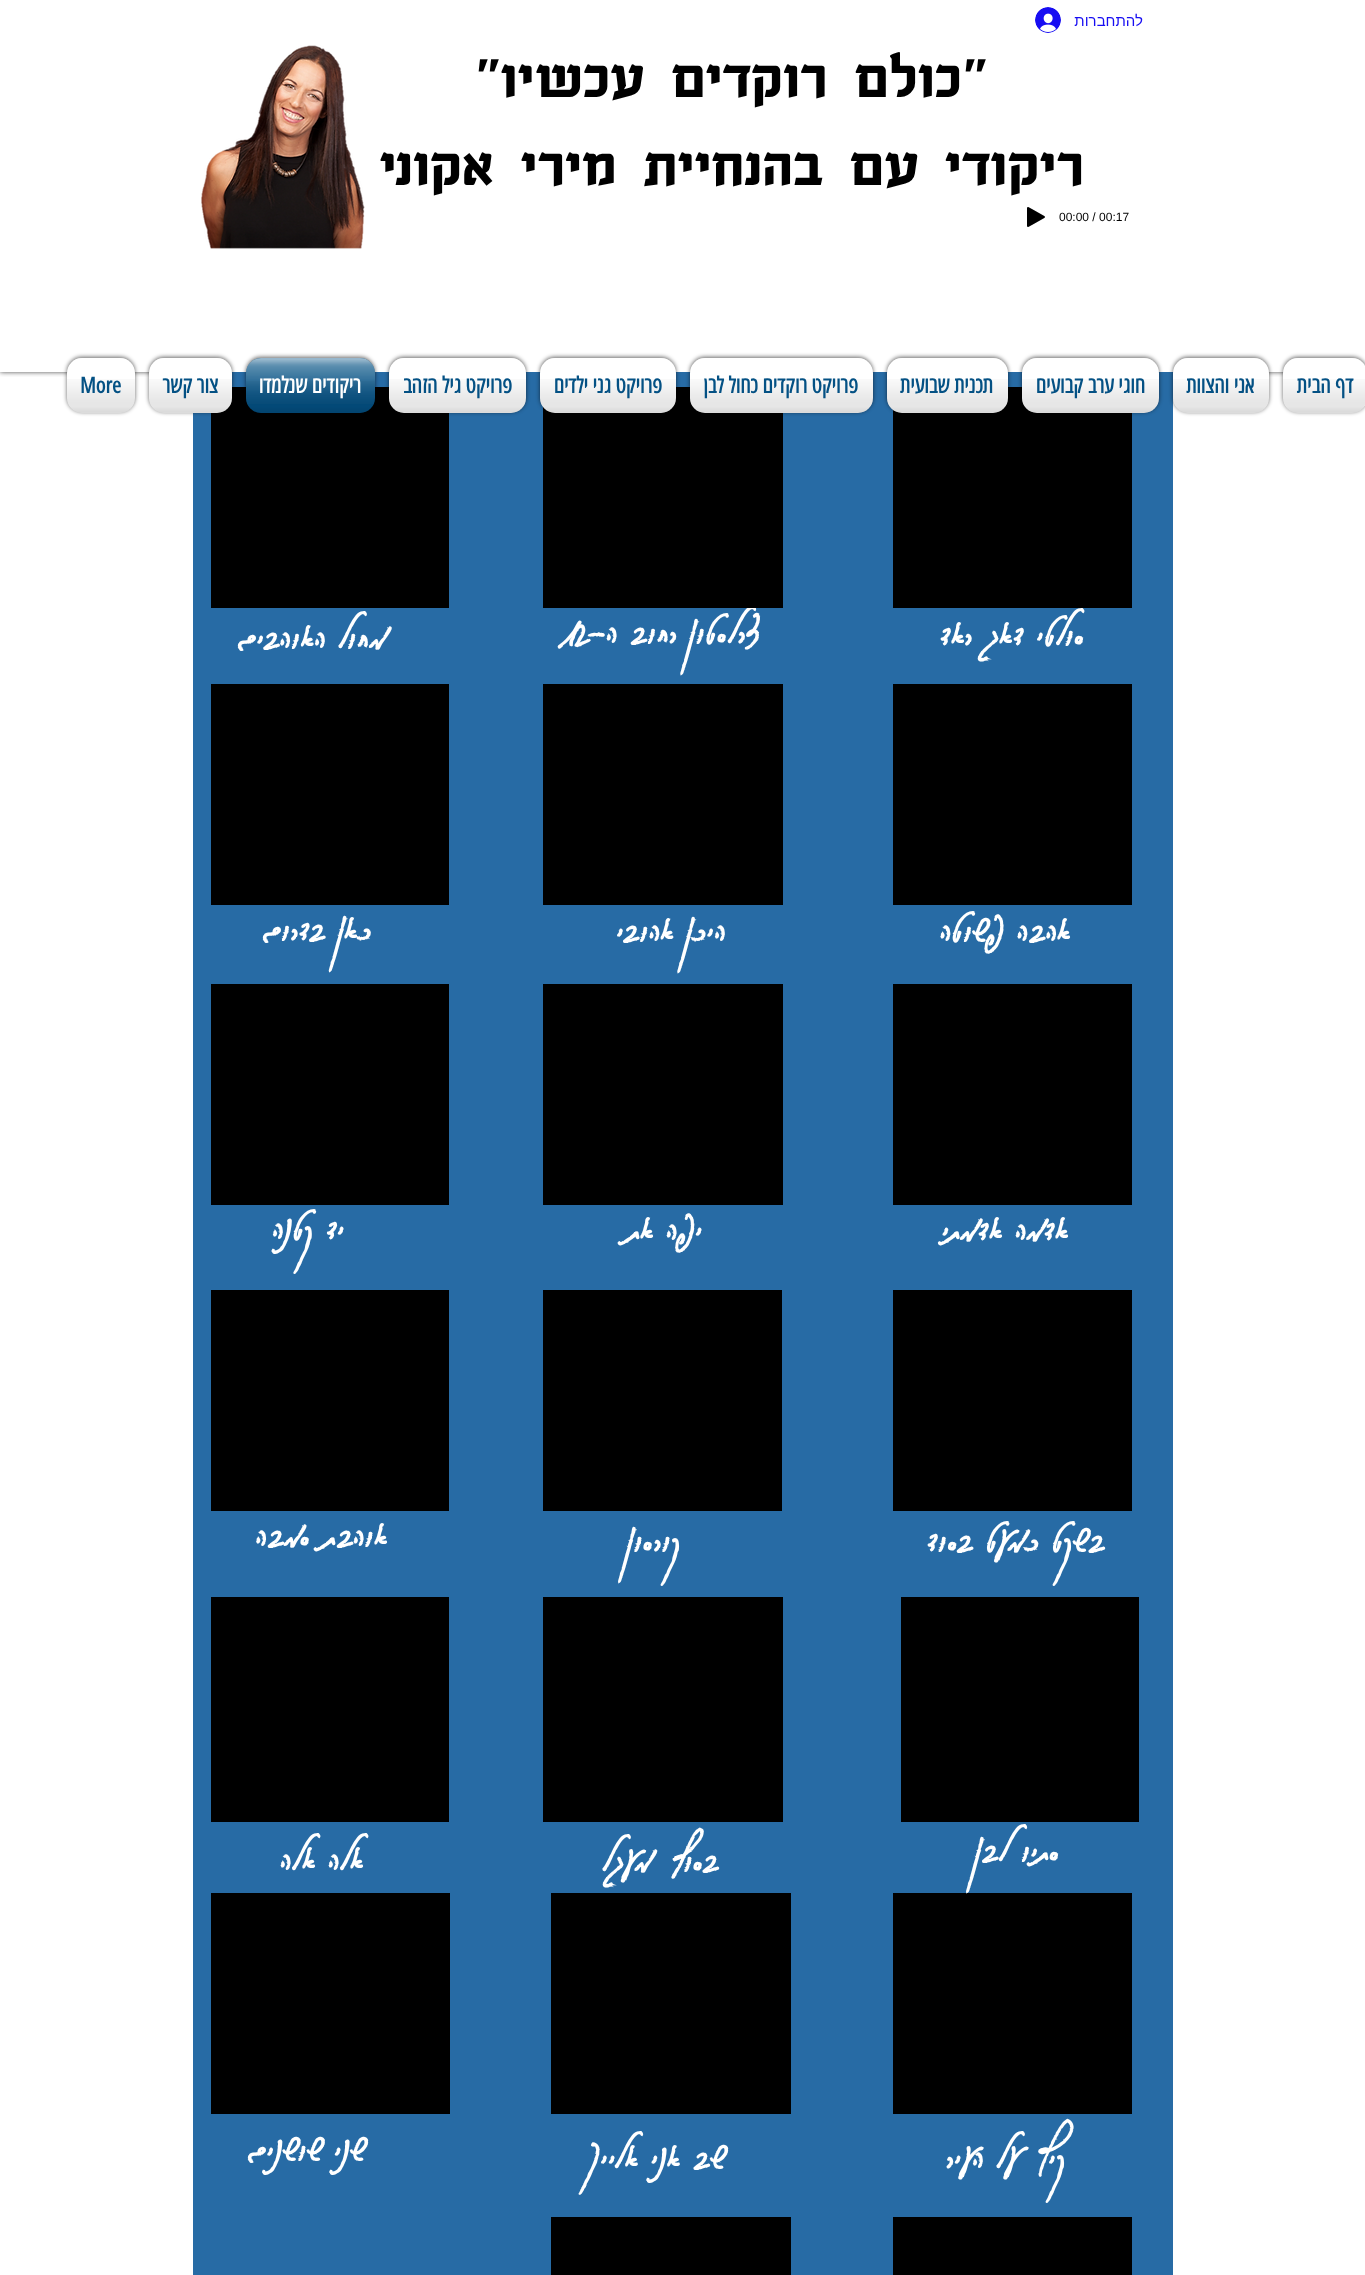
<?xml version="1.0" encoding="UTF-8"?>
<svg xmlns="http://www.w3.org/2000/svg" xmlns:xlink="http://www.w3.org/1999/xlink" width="1365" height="2275">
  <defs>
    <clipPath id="clip1"><rect x="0" y="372" width="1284" height="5" /></clipPath>
  </defs>
  <rect width="100%" height="100%" fill="#ffffff" />
  <g clip-path="url(#clip1)">
    <rect width="1365" height="372" fill="#000000" fill-opacity="0.7" filter="blur(2.5px)" />
  </g>
  <image x="1035" y="7" width="26" height="26" xlink:href="image1.png" />
  <image x="201" y="45" width="164" height="204" xlink:href="image2.png" />
  <image x="1027" y="207" width="18" height="20" xlink:href="image3.png" />
  <rect x="1283" y="357" width="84" height="55" rx="15" fill="#000000" fill-opacity="0.6" filter="blur(2px)" />
  <rect x="1283" y="358" width="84" height="55" rx="15" fill="#ffffff" />
  <image x="1288" y="358" width="77" height="7" xlink:href="image4.png" />
  <image x="1283" y="379" width="82" height="34" xlink:href="image5.png" />
  <rect x="193" y="372" width="980" height="1903" fill="#276ba5" />
  <rect x="1173" y="357" width="96" height="55" rx="15" fill="#000000" fill-opacity="0.6" filter="blur(2px)" />
  <rect x="1173" y="358" width="96" height="55" rx="15" fill="#ffffff" />
  <image x="1178" y="358" width="89" height="7" xlink:href="image6.png" />
  <image x="1173" y="379" width="96" height="34" xlink:href="image7.png" />
  <rect x="893" y="387" width="239" height="221" fill="#000000" />
  <rect x="1022" y="357" width="137" height="55" rx="15" fill="#000000" fill-opacity="0.6" filter="blur(2px)" />
  <rect x="1022" y="358" width="137" height="55" rx="15" fill="#ffffff" />
  <image x="1027" y="358" width="130" height="7" xlink:href="image8.png" />
  <image x="1022" y="379" width="137" height="34" xlink:href="image9.png" />
  <rect x="887" y="357" width="121" height="55" rx="15" fill="#000000" fill-opacity="0.6" filter="blur(2px)" />
  <rect x="887" y="358" width="121" height="55" rx="15" fill="#ffffff" />
  <image x="892" y="358" width="114" height="7" xlink:href="image10.png" />
  <image x="887" y="379" width="121" height="34" xlink:href="image11.png" />
  <rect x="211" y="387" width="238" height="221" fill="#000000" />
  <rect x="389" y="357" width="137" height="55" rx="15" fill="#000000" fill-opacity="0.6" filter="blur(2px)" />
  <rect x="389" y="358" width="137" height="55" rx="15" fill="#ffffff" />
  <image x="394" y="358" width="130" height="7" xlink:href="image8.png" />
  <image x="389" y="379" width="137" height="34" xlink:href="image9.png" />
  <rect x="246" y="357" width="129" height="55" rx="15" fill="#000000" fill-opacity="0.6" filter="blur(2px)" />
  <rect x="246" y="358" width="129" height="55" rx="15" fill="#045184" />
  <image x="246" y="358" width="129" height="46" xlink:href="image16.png" />
  <image x="246" y="381" width="129" height="32" xlink:href="image17.png" />
  <rect x="149" y="357" width="83" height="55" rx="15" fill="#000000" fill-opacity="0.6" filter="blur(2px)" />
  <rect x="149" y="358" width="83" height="55" rx="15" fill="#ffffff" />
  <image x="154" y="358" width="76" height="7" xlink:href="image18.png" />
  <image x="149" y="379" width="83" height="34" xlink:href="image19.png" />
  <rect x="67" y="357" width="68" height="55" rx="15" fill="#000000" fill-opacity="0.6" filter="blur(2px)" />
  <rect x="67" y="358" width="68" height="55" rx="15" fill="#ffffff" />
  <image x="72" y="358" width="61" height="7" xlink:href="image20.png" />
  <image x="67" y="379" width="68" height="34" xlink:href="image21.png" />
  <rect x="893" y="684" width="239" height="221" fill="#000000" />
  <rect x="543" y="684" width="240" height="221" fill="#000000" />
  <rect x="211" y="684" width="238" height="221" fill="#000000" />
  <rect x="893" y="984" width="239" height="221" fill="#000000" />
  <rect x="543" y="984" width="240" height="221" fill="#000000" />
  <rect x="211" y="984" width="238" height="221" fill="#000000" />
  <rect x="893" y="1290" width="239" height="221" fill="#000000" />
  <rect x="543" y="1290" width="239" height="221" fill="#000000" />
  <rect x="211" y="1290" width="238" height="221" fill="#000000" />
  <rect x="901" y="1597" width="238" height="225" fill="#000000" />
  <rect x="543" y="1597" width="240" height="225" fill="#000000" />
  <rect x="211" y="1597" width="238" height="225" fill="#000000" />
  <rect x="893" y="1893" width="239" height="221" fill="#000000" />
  <rect x="551" y="1893" width="240" height="221" fill="#000000" />
  <rect x="211" y="1893" width="239" height="221" fill="#000000" />
  <rect x="893" y="2217" width="239" height="58" fill="#000000" />
  <rect x="551" y="2217" width="240" height="58" fill="#000000" />
  <text x="1143" y="26" style="font-family: Liberation Sans; font-size: 15px; direction: rtl; fill: #170df2">להתחברות</text>
  <text x="962" y="97" style="font-family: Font; font-size: 60px; font-weight: bold; fill: #000000">"</text>
  <text x="962" y="97" style="font-family: Font; font-size: 60px; font-weight: bold; direction: rtl; fill: #000000" xml:space="preserve">כולם  רוקדים  עכשיו</text>
  <text x="475" y="97" style="font-family: Font; font-size: 60px; font-weight: bold; fill: #000000">"</text>
  <text x="1084" y="185" style="font-family: Font; font-size: 60px; font-weight: bold; direction: rtl; fill: #000000" xml:space="preserve">ריקודי  עם  בהנחיית  מירי  אקוני</text>
  <text x="1059" y="221" style="font-family: Liberation Sans; font-size: 12px; fill: #000000">00:00 / 00:17</text>
  <text x="1353" y="393" style="font-family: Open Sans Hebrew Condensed; font-size: 22px; font-weight: bold; direction: rtl; fill: #045184">דף הבית</text>
  <text x="1254" y="393" style="font-family: Open Sans Hebrew Condensed; font-size: 22px; font-weight: bold; direction: rtl; fill: #045184">אני והצוות</text>
  <text x="1145" y="393" style="font-family: Open Sans Hebrew Condensed; font-size: 22px; font-weight: bold; direction: rtl; fill: #045184">חוגי ערב קבועים</text>
  <text x="993" y="393" style="font-family: Open Sans Hebrew Condensed; font-size: 22px; font-weight: bold; direction: rtl; fill: #045184">תכנית שבועית</text>
  <text x="512" y="393" style="font-family: Open Sans Hebrew Condensed; font-size: 22px; font-weight: bold; direction: rtl; fill: #045184">פרויקט גיל הזהב</text>
  <text x="361" y="393" style="font-family: Open Sans Hebrew Condensed; font-size: 22px; font-weight: bold; direction: rtl; fill: #ffffff">ריקודים שנלמדו</text>
  <text x="218" y="393" style="font-family: Open Sans Hebrew Condensed; font-size: 22px; font-weight: bold; direction: rtl; fill: #045184">צור קשר</text>
  <text x="80" y="393" style="font-family: Open Sans Hebrew Condensed; font-size: 22px; font-weight: bold; fill: #045184">More</text>
  <text x="1085" y="646" style="font-family: 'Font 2'; font-size: 60px; font-weight: bold; letter-spacing: 1.25px; direction: rtl; fill: #ffffff">סולטי דאג ראד</text>
  <text x="561" y="644" style="font-family: 'Font 2'; font-size: 60px; font-weight: bold; letter-spacing: 1.25px; fill: #ffffff">12</text>
  <text x="760" y="644" style="font-family: 'Font 2'; font-size: 60px; font-weight: bold; letter-spacing: 1.25px; direction: rtl; fill: #ffffff">צרלסטון רחוב ה-</text>
  <rect x="543" y="387" width="240" height="221" fill="#000000" />
  <rect x="540" y="357" width="136" height="55" rx="15" fill="#000000" fill-opacity="0.6" filter="blur(2px)" />
  <rect x="540" y="358" width="136" height="55" rx="15" fill="#ffffff" />
  <image x="540" y="379" width="136" height="34" xlink:href="image15.png" />
  <text x="662" y="393" style="font-family: Open Sans Hebrew Condensed; font-size: 22px; font-weight: bold; direction: rtl; fill: #045184">פרויקט גני ילדים</text>
  <image x="545" y="358" width="129" height="7" xlink:href="image14.png" />
  <rect x="690" y="357" width="183" height="55" rx="15" fill="#000000" fill-opacity="0.6" filter="blur(2px)" />
  <rect x="690" y="358" width="183" height="55" rx="15" fill="#ffffff" />
  <image x="690" y="379" width="183" height="34" xlink:href="image13.png" />
  <text x="858" y="393" style="font-family: Open Sans Hebrew Condensed; font-size: 22px; font-weight: bold; direction: rtl; fill: #045184">פרויקט רוקדים כחול לבן</text>
  <image x="695" y="358" width="176" height="7" xlink:href="image12.png" />
  <text x="387" y="649" style="font-family: 'Font 2'; font-size: 60px; font-weight: bold; letter-spacing: 1.25px; direction: rtl; fill: #ffffff">מחול האוהבים</text>
  <text x="1071" y="942" style="font-family: 'Font 2'; font-size: 60px; font-weight: bold; letter-spacing: 1.25px; direction: rtl; fill: #ffffff">אהבה פשוטה</text>
  <text x="726" y="942" style="font-family: 'Font 2'; font-size: 60px; font-weight: bold; letter-spacing: 1.25px; direction: rtl; fill: #ffffff">היכן אהובי</text>
  <text x="372" y="941" style="font-family: 'Font 2'; font-size: 60px; font-weight: bold; letter-spacing: 1.25px; direction: rtl; fill: #ffffff">כאן בדרום</text>
  <text x="1069" y="1241" style="font-family: 'Font 2'; font-size: 60px; font-weight: bold; letter-spacing: 1.25px; direction: rtl; fill: #ffffff">אדמה אדמתי</text>
  <text x="703" y="1241" style="font-family: 'Font 2'; font-size: 60px; font-weight: bold; letter-spacing: 1.25px; direction: rtl; fill: #ffffff">יפה את</text>
  <text x="345" y="1240" style="font-family: 'Font 2'; font-size: 60px; font-weight: bold; letter-spacing: 1.25px; direction: rtl; fill: #ffffff">יד קטנה</text>
  <text x="1105" y="1552" style="font-family: 'Font 2'; font-size: 60px; font-weight: bold; letter-spacing: 1.25px; direction: rtl; fill: #ffffff">בשקט כמעט בסוד</text>
  <text x="681" y="1552" style="font-family: 'Font 2'; font-size: 60px; font-weight: bold; letter-spacing: 1.25px; direction: rtl; fill: #ffffff">קורסון</text>
  <text x="388" y="1547" style="font-family: 'Font 2'; font-size: 60px; font-weight: bold; letter-spacing: 1.25px; direction: rtl; fill: #ffffff">אוהבת סמבה</text>
  <text x="1060" y="1862" style="font-family: 'Font 2'; font-size: 60px; font-weight: bold; letter-spacing: 1.25px; direction: rtl; fill: #ffffff">סתיו לבן</text>
  <text x="719" y="1872" style="font-family: 'Font 2'; font-size: 60px; font-weight: bold; letter-spacing: 1.25px; direction: rtl; fill: #ffffff" xml:space="preserve">בסוף  מעגל</text>
  <text x="364" y="1871" style="font-family: 'Font 2'; font-size: 60px; font-weight: bold; letter-spacing: 1.25px; direction: rtl; fill: #ffffff">אלה אלה</text>
  <text x="1066" y="2169" style="font-family: 'Font 2'; font-size: 60px; font-weight: bold; letter-spacing: 1.25px; direction: rtl; fill: #ffffff" xml:space="preserve">קיץ  על העיר</text>
  <text x="725" y="2169" style="font-family: 'Font 2'; font-size: 60px; font-weight: bold; letter-spacing: 1.25px; direction: rtl; fill: #ffffff">שב אני אלייך</text>
  <text x="365" y="2161" style="font-family: 'Font 2'; font-size: 60px; font-weight: bold; letter-spacing: 1.25px; direction: rtl; fill: #ffffff">שני שושנים</text>
</svg>
